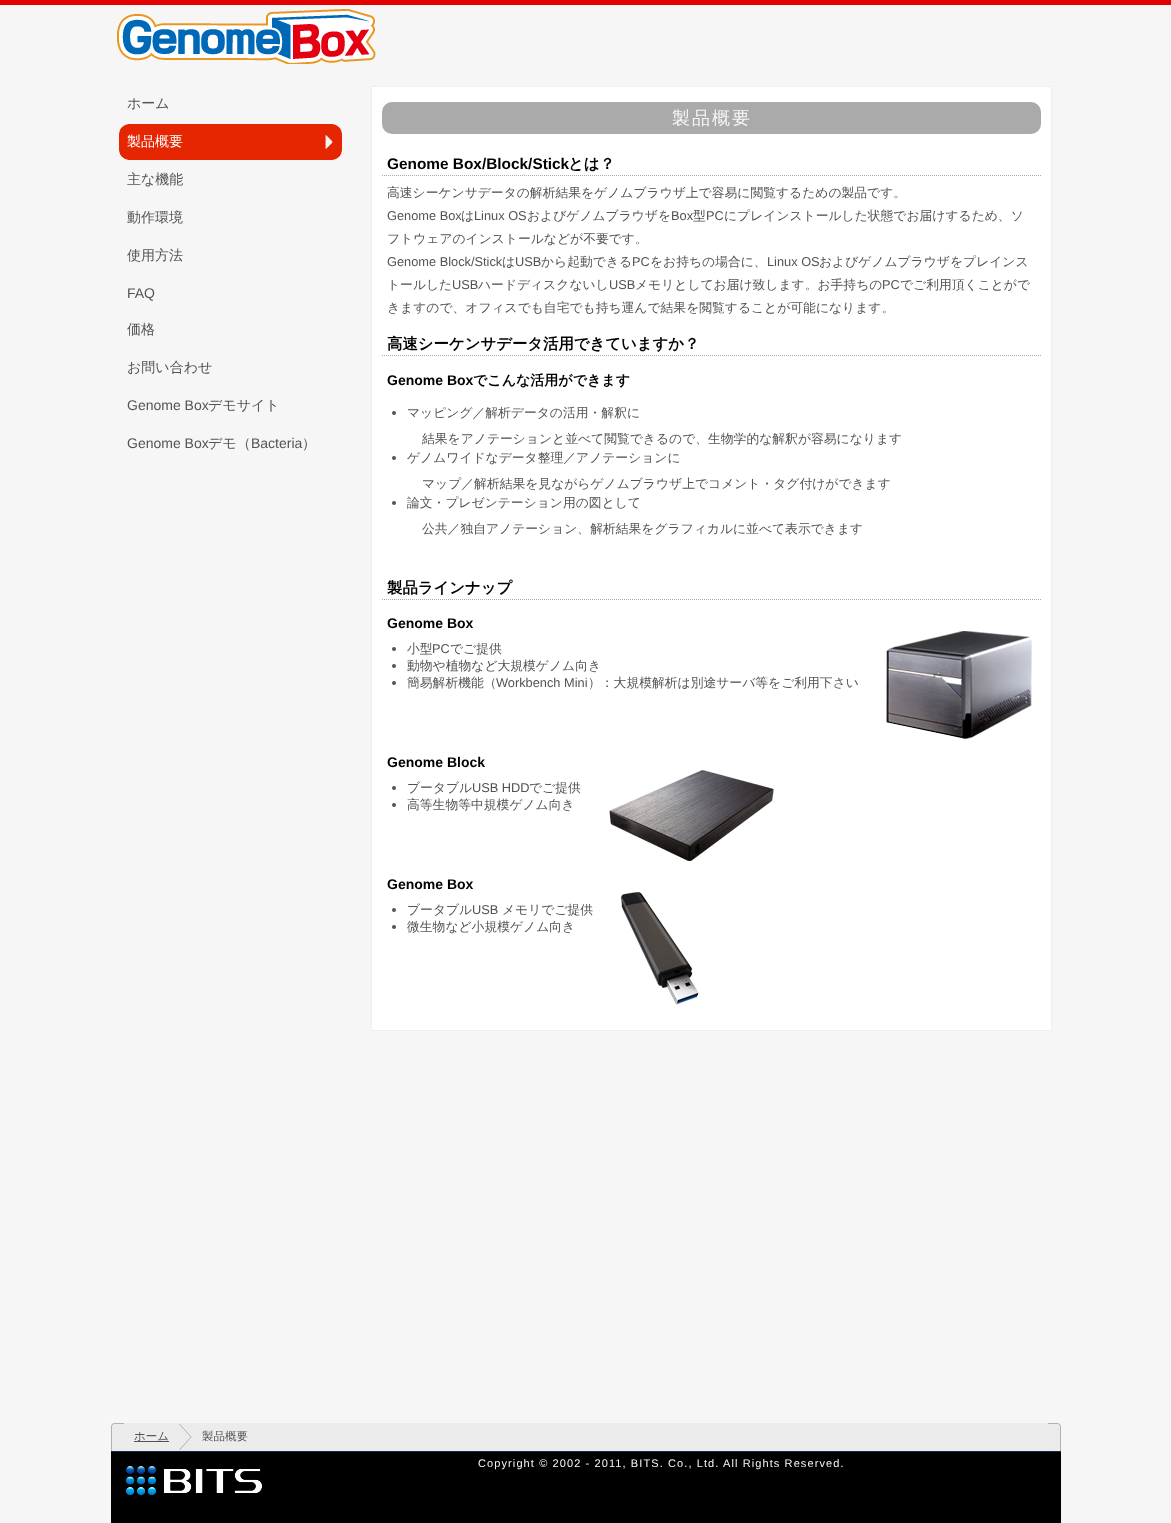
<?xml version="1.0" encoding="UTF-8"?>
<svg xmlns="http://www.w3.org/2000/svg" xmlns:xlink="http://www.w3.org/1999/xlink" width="1171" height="1523">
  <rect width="100%" height="100%" fill="#f6f6f6" />
  <rect width="1171" height="5" fill="#e30000" />
  <image x="117" y="9" width="259" height="55" xlink:href="image1.png" />
  <image x="119" y="124" width="223" height="36" xlink:href="image2.png" />
  <rect x="371.5" y="86.5" width="680" height="944" fill="#ffffff" stroke="#efefef" />
  <rect x="382" y="102" width="659" height="32" rx="10" fill="#aaaaaa" />
  <path d="M 382 175.5 h 659" fill="none" stroke="#aaaaaa" stroke-dasharray="1 1" />
  <path d="M 382 355.5 h 659" fill="none" stroke="#aaaaaa" stroke-dasharray="1 1" />
  <circle cx="394" cy="413" r="2" fill="#535353" />
  <circle cx="394" cy="458" r="2" fill="#535353" />
  <circle cx="394" cy="503" r="2" fill="#535353" />
  <path d="M 382 599.5 h 659" fill="none" stroke="#aaaaaa" stroke-dasharray="1 1" />
  <circle cx="394" cy="649" r="2" fill="#535353" />
  <circle cx="394" cy="666" r="2" fill="#535353" />
  <circle cx="394" cy="683" r="2" fill="#535353" />
  <image x="886" y="631" width="146" height="108" xlink:href="image3.png" />
  <circle cx="394" cy="788" r="2" fill="#535353" />
  <circle cx="394" cy="805" r="2" fill="#535353" />
  <image x="609" y="770" width="165" height="91" xlink:href="image4.png" />
  <circle cx="394" cy="910" r="2" fill="#535353" />
  <circle cx="394" cy="927" r="2" fill="#535353" />
  <image x="621" y="892" width="78" height="113" xlink:href="image5.png" />
  <rect x="111" y="1452" width="950" height="71" fill="#000000" />
  <image x="111" y="1423" width="13" height="28" xlink:href="image6.png" />
  <rect x="124" y="1423" width="924" height="28" fill="#ececec" />
  <rect x="134" y="1441" width="35" height="1" fill="#535353" />
  <image x="179" y="1424" width="13" height="26" xlink:href="image7.png" />
  <image x="1048" y="1423" width="13" height="28" xlink:href="image8.png" />
  <rect x="111" y="1451" width="950" height="1" fill="#152c4f" />
  <image x="126" y="1466" width="136" height="29" xlink:href="image9.png" />
  <text x="127" y="108" style="font-family: WenQuanYi Zen Hei; font-size: 14px; font-weight: 500; fill: #535353">ホーム</text>
  <text x="127" y="146" style="font-family: WenQuanYi Zen Hei; font-size: 14px; font-weight: 500; fill: #ffffff">製品概要</text>
  <text x="127" y="184" style="font-family: WenQuanYi Zen Hei; font-size: 14px; font-weight: 500; fill: #535353">主な機能</text>
  <text x="127" y="222" style="font-family: WenQuanYi Zen Hei; font-size: 14px; font-weight: 500; fill: #535353">動作環境</text>
  <text x="127" y="260" style="font-family: WenQuanYi Zen Hei; font-size: 14px; font-weight: 500; fill: #535353">使用方法</text>
  <text x="127" y="298" style="font-family: Liberation Sans; font-size: 14px; fill: #535353">FAQ</text>
  <text x="127" y="334" style="font-family: WenQuanYi Zen Hei; font-size: 14px; font-weight: 500; fill: #535353">価格</text>
  <text x="127" y="372" style="font-family: WenQuanYi Zen Hei; font-size: 14px; font-weight: 500; fill: #535353">お問い合わせ</text>
  <text x="127" y="410" style="font-family: Liberation Sans; font-size: 14px; fill: #535353">Genome Box</text>
  <text x="208" y="410" style="font-family: WenQuanYi Zen Hei; font-size: 14px; font-weight: 500; fill: #535353">デモサイト</text>
  <text x="127" y="448" style="font-family: Liberation Sans; font-size: 14px; fill: #535353">Genome Box</text>
  <text x="208" y="448" style="font-family: WenQuanYi Zen Hei; font-size: 14px; font-weight: 500; fill: #535353">デモ（</text>
  <text x="251" y="448" style="font-family: Liberation Sans; font-size: 14px; fill: #535353">Bacteria</text>
  <text x="302" y="448" style="font-family: WenQuanYi Zen Hei; font-size: 14px; font-weight: 500; fill: #535353">）</text>
  <text x="672" y="124" style="font-family: WenQuanYi Zen Hei; font-size: 18px; font-weight: 500; letter-spacing: 2px; fill: #f6f6f6">製品概要</text>
  <text x="387" y="169" style="font-family: Liberation Sans; font-size: 15.4px; font-weight: bold; fill: #000000">Genome Box/Block/Stick</text>
  <text x="568" y="169" style="font-family: WenQuanYi Zen Hei; font-size: 15.4px; font-weight: bold; fill: #000000">とは？</text>
  <text x="387" y="197" style="font-family: WenQuanYi Zen Hei; font-size: 12.8px; font-weight: 500; fill: #535353">高速シーケンサデータの解析結果をゲノムブラウザ上で容易に閲覧するための製品です。</text>
  <text x="387" y="220" style="font-family: Liberation Sans; font-size: 12.8px; fill: #535353">Genome Box</text>
  <text x="461" y="220" style="font-family: WenQuanYi Zen Hei; font-size: 12.8px; font-weight: 500; fill: #535353">は</text>
  <text x="474" y="220" style="font-family: Liberation Sans; font-size: 12.8px; fill: #535353">Linux OS</text>
  <text x="527" y="220" style="font-family: WenQuanYi Zen Hei; font-size: 12.8px; font-weight: 500; fill: #535353">およびゲノムブラウザを</text>
  <text x="671" y="220" style="font-family: Liberation Sans; font-size: 12.8px; fill: #535353">Box</text>
  <text x="693" y="220" style="font-family: WenQuanYi Zen Hei; font-size: 12.8px; font-weight: 500; fill: #535353">型</text>
  <text x="706" y="220" style="font-family: Liberation Sans; font-size: 12.8px; fill: #535353">PC</text>
  <text x="724" y="220" style="font-family: WenQuanYi Zen Hei; font-size: 12.8px; font-weight: 500; fill: #535353">にプレインストールした状態でお届けするため、ソ</text>
  <text x="387" y="243" style="font-family: WenQuanYi Zen Hei; font-size: 12.8px; font-weight: 500; fill: #535353">フトウェアのインストールなどが不要です。</text>
  <text x="387" y="266" style="font-family: Liberation Sans; font-size: 12.8px; fill: #535353">Genome Block/Stick</text>
  <text x="502" y="266" style="font-family: WenQuanYi Zen Hei; font-size: 12.8px; font-weight: 500; fill: #535353">は</text>
  <text x="515" y="266" style="font-family: Liberation Sans; font-size: 12.8px; fill: #535353">USB</text>
  <text x="541" y="266" style="font-family: WenQuanYi Zen Hei; font-size: 12.8px; font-weight: 500; fill: #535353">から起動できる</text>
  <text x="632" y="266" style="font-family: Liberation Sans; font-size: 12.8px; fill: #535353">PC</text>
  <text x="650" y="266" style="font-family: WenQuanYi Zen Hei; font-size: 12.8px; font-weight: 500; fill: #535353">をお持ちの場合に、</text>
  <text x="767" y="266" style="font-family: Liberation Sans; font-size: 12.8px; fill: #535353">Linux OS</text>
  <text x="819" y="266" style="font-family: WenQuanYi Zen Hei; font-size: 12.8px; font-weight: 500; fill: #535353">およびゲノムブラウザをプレインス</text>
  <text x="387" y="289" style="font-family: WenQuanYi Zen Hei; font-size: 12.8px; font-weight: 500; fill: #535353">トールした</text>
  <text x="452" y="289" style="font-family: Liberation Sans; font-size: 12.8px; fill: #535353">USB</text>
  <text x="478" y="289" style="font-family: WenQuanYi Zen Hei; font-size: 12.8px; font-weight: 500; fill: #535353">ハードディスクないし</text>
  <text x="609" y="289" style="font-family: Liberation Sans; font-size: 12.8px; fill: #535353">USB</text>
  <text x="635" y="289" style="font-family: WenQuanYi Zen Hei; font-size: 12.8px; font-weight: 500; fill: #535353">メモリとしてお届け致します。お手持ちの</text>
  <text x="882" y="289" style="font-family: Liberation Sans; font-size: 12.8px; fill: #535353">PC</text>
  <text x="900" y="289" style="font-family: WenQuanYi Zen Hei; font-size: 12.8px; font-weight: 500; fill: #535353">でご利用頂くことがで</text>
  <text x="387" y="312" style="font-family: WenQuanYi Zen Hei; font-size: 12.8px; font-weight: 500; fill: #535353">きますので、オフィスでも自宅でも持ち運んで結果を閲覧することが可能になります。</text>
  <text x="387" y="349" style="font-family: WenQuanYi Zen Hei; font-size: 15.4px; font-weight: bold; fill: #000000">高速シーケンサデータ活用できていますか？</text>
  <text x="387" y="385" style="font-family: Liberation Sans; font-size: 14px; font-weight: bold; fill: #000000">Genome Box</text>
  <text x="473" y="385" style="font-family: WenQuanYi Zen Hei; font-size: 14px; font-weight: bold; fill: #000000">でこんな活用ができます</text>
  <text x="407" y="417" style="font-family: WenQuanYi Zen Hei; font-size: 12.8px; font-weight: 500; fill: #535353">マッピング／解析データの活用・解釈に</text>
  <text x="422" y="443" style="font-family: WenQuanYi Zen Hei; font-size: 12.8px; font-weight: 500; fill: #535353">結果をアノテーションと並べて閲覧できるので、生物学的な解釈が容易になります</text>
  <text x="407" y="462" style="font-family: WenQuanYi Zen Hei; font-size: 12.8px; font-weight: 500; fill: #535353">ゲノムワイドなデータ整理／アノテーションに</text>
  <text x="422" y="488" style="font-family: WenQuanYi Zen Hei; font-size: 12.8px; font-weight: 500; fill: #535353">マップ／解析結果を見ながらゲノムブラウザ上でコメント・タグ付けができます</text>
  <text x="407" y="507" style="font-family: WenQuanYi Zen Hei; font-size: 12.8px; font-weight: 500; fill: #535353">論文・プレゼンテーション用の図として</text>
  <text x="422" y="533" style="font-family: WenQuanYi Zen Hei; font-size: 12.8px; font-weight: 500; fill: #535353">公共／独自アノテーション、解析結果をグラフィカルに並べて表示できます</text>
  <text x="387" y="593" style="font-family: WenQuanYi Zen Hei; font-size: 15.4px; font-weight: bold; fill: #000000">製品ラインナップ</text>
  <text x="387" y="628" style="font-family: Liberation Sans; font-size: 14px; font-weight: bold; fill: #000000">Genome Box</text>
  <text x="407" y="653" style="font-family: WenQuanYi Zen Hei; font-size: 12.8px; font-weight: 500; fill: #535353">小型</text>
  <text x="432" y="653" style="font-family: Liberation Sans; font-size: 12.8px; fill: #535353">PC</text>
  <text x="450" y="653" style="font-family: WenQuanYi Zen Hei; font-size: 12.8px; font-weight: 500; fill: #535353">でご提供</text>
  <text x="407" y="670" style="font-family: WenQuanYi Zen Hei; font-size: 12.8px; font-weight: 500; fill: #535353">動物や植物など大規模ゲノム向き</text>
  <text x="407" y="687" style="font-family: WenQuanYi Zen Hei; font-size: 12.8px; font-weight: 500; fill: #535353">簡易解析機能（</text>
  <text x="496" y="687" style="font-family: Liberation Sans; font-size: 12.8px; fill: #535353">Workbench Mini</text>
  <text x="588" y="687" style="font-family: WenQuanYi Zen Hei; font-size: 12.8px; font-weight: 500; fill: #535353">）：大規模解析は別途サーバ等をご利用下さい</text>
  <text x="387" y="767" style="font-family: Liberation Sans; font-size: 14px; font-weight: bold; fill: #000000">Genome Block</text>
  <text x="407" y="792" style="font-family: WenQuanYi Zen Hei; font-size: 12.8px; font-weight: 500; fill: #535353">ブータブル</text>
  <text x="472" y="792" style="font-family: Liberation Sans; font-size: 12.8px; fill: #535353">USB HDD</text>
  <text x="529" y="792" style="font-family: WenQuanYi Zen Hei; font-size: 12.8px; font-weight: 500; fill: #535353">でご提供</text>
  <text x="407" y="809" style="font-family: WenQuanYi Zen Hei; font-size: 12.8px; font-weight: 500; fill: #535353">高等生物等中規模ゲノム向き</text>
  <text x="387" y="889" style="font-family: Liberation Sans; font-size: 14px; font-weight: bold; fill: #000000">Genome Box</text>
  <text x="407" y="914" style="font-family: WenQuanYi Zen Hei; font-size: 12.8px; font-weight: 500; fill: #535353">ブータブル</text>
  <text x="472" y="914" style="font-family: Liberation Sans; font-size: 12.8px; fill: #535353">USB</text>
  <text x="502" y="914" style="font-family: WenQuanYi Zen Hei; font-size: 12.8px; font-weight: 500; fill: #535353">メモリでご提供</text>
  <text x="407" y="931" style="font-family: WenQuanYi Zen Hei; font-size: 12.8px; font-weight: 500; fill: #535353">微生物など小規模ゲノム向き</text>
  <text x="134" y="1440" style="font-family: WenQuanYi Zen Hei; font-size: 11.5px; font-weight: 500; fill: #535353">ホーム</text>
  <text x="202" y="1440" style="font-family: WenQuanYi Zen Hei; font-size: 11.5px; font-weight: 500; fill: #535353">製品概要</text>
  <text x="478" y="1467" style="font-family: Liberation Sans; font-size: 11px; letter-spacing: 1.1px; fill: #f6f6f6">Copyright © 2002 - 2011, BITS. Co., Ltd. All Rights Reserved.</text>
</svg>
